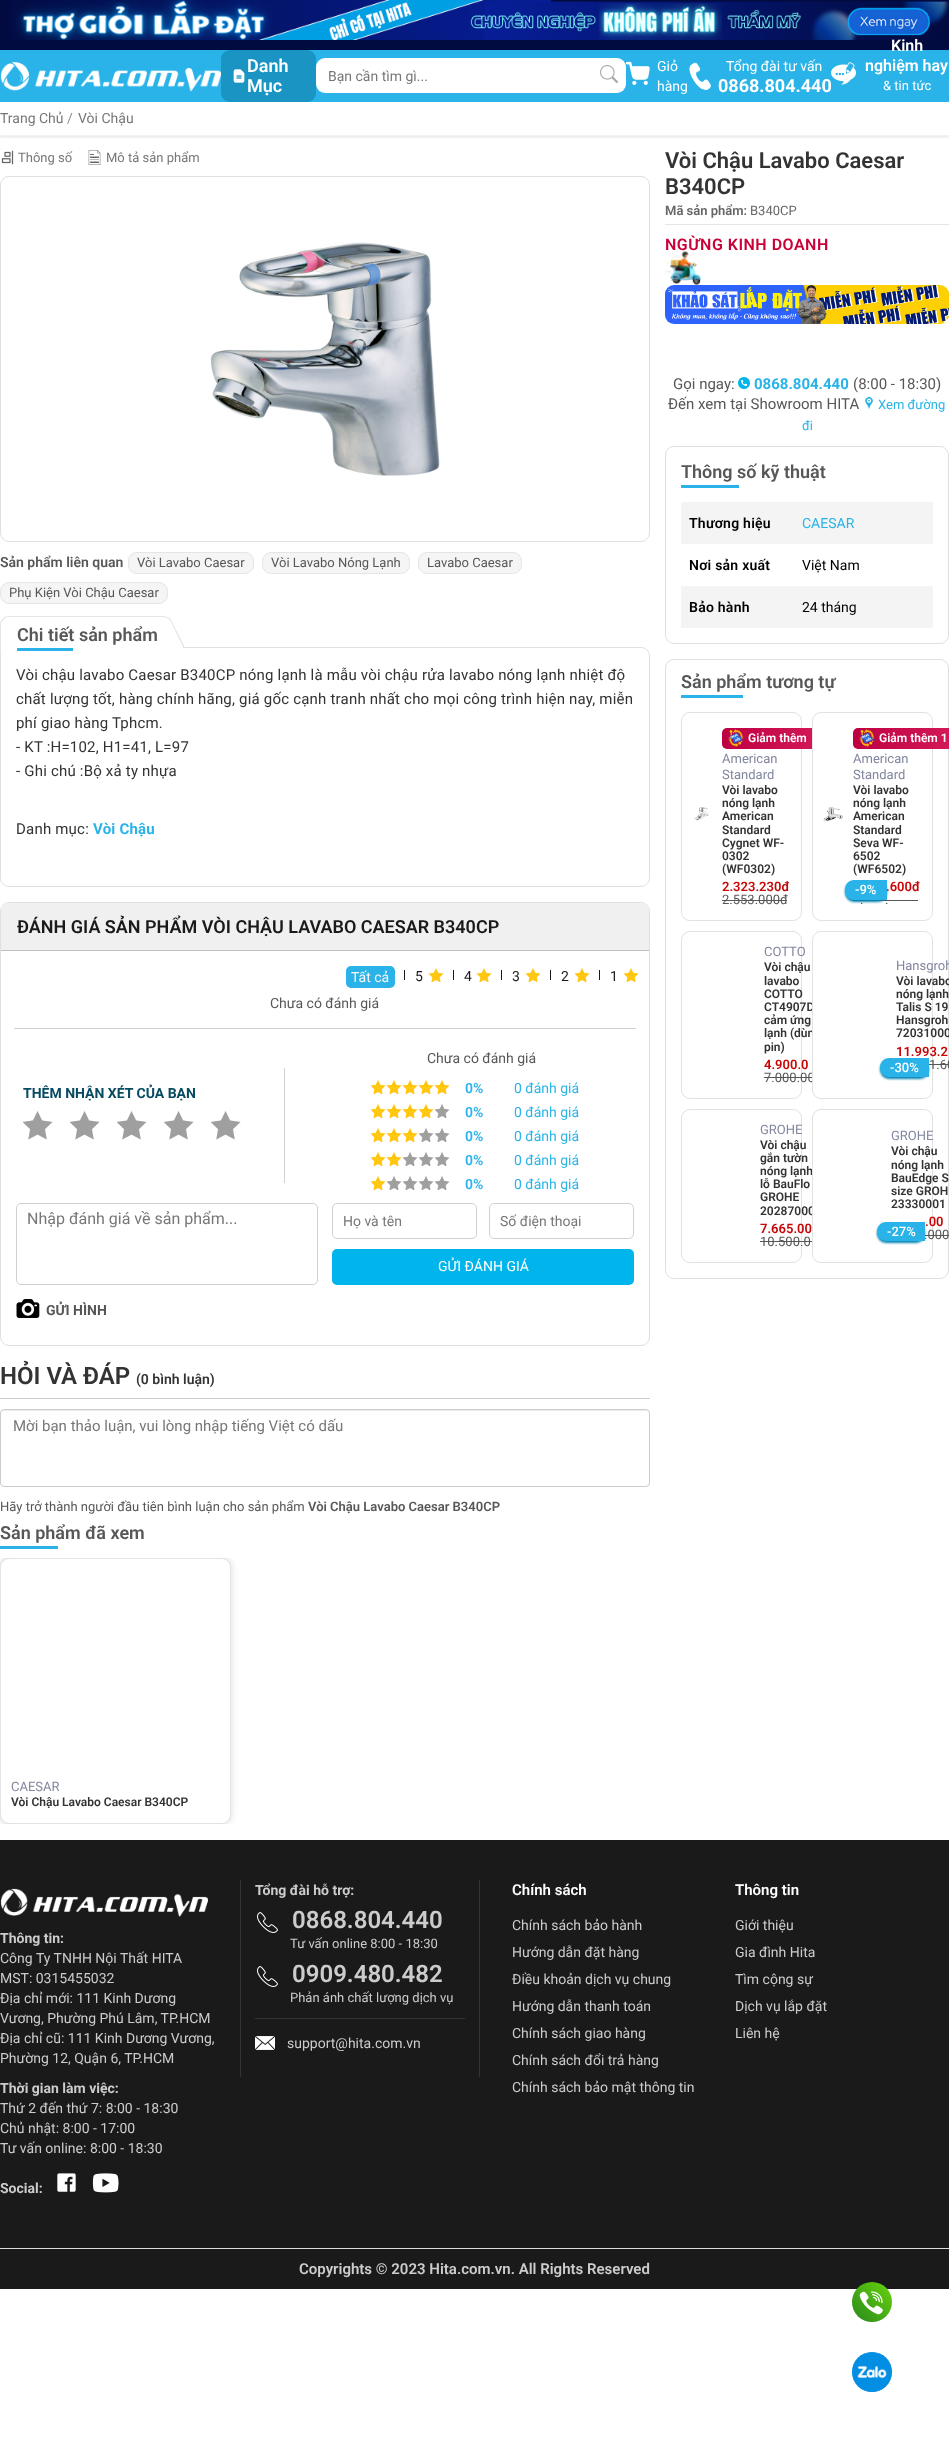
<?xml version="1.0" encoding="UTF-8"?>
<svg xmlns="http://www.w3.org/2000/svg" xmlns:xlink="http://www.w3.org/1999/xlink" width="949" height="2442">
  <defs>
    <clipPath id="clip1"><rect x="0" y="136" width="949" height="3" /></clipPath>
    <linearGradient id="g1" gradientUnits="userSpaceOnUse" x1="722" y1="739" x2="867" y2="739"><stop offset="0" stop-color="#bd0042" /><stop offset="0.9" stop-color="#db215f" /></linearGradient>
    <linearGradient id="g2" gradientUnits="userSpaceOnUse" x1="853" y1="739" x2="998" y2="739"><stop offset="0" stop-color="#bd0042" /><stop offset="0.9" stop-color="#db215f" /></linearGradient>
    <clipPath id="clip2"><rect x="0" y="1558" width="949" height="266" /></clipPath>
    <linearGradient id="g3" gradientUnits="userSpaceOnUse" x1="892" y1="2282" x2="852" y2="2322"><stop offset="0" stop-color="#69d40c" /><stop offset="1" stop-color="#27881d" /></linearGradient>
  </defs>
  <rect width="100%" height="100%" fill="#ffffff" />
  <rect width="949" height="50" fill="#020b40" />
  <image x="9" y="0" width="940" height="40" xlink:href="image1.png" />
  <g clip-path="url(#clip1)">
    <rect x="-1" y="101" width="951" height="36" fill="#3c4043" fill-opacity="0.15" filter="blur(1.5px)" />
  </g>
  <rect y="50" width="949" height="52" fill="#29b3e8" />
  <image x="0" y="62" width="221" height="30" xlink:href="image2.png" />
  <rect x="221" y="50" width="95" height="52" rx="9" fill="#1a94c3" />
  <image x="233" y="69" width="12" height="14" xlink:href="image3.png" />
  <rect x="316" y="58" width="310" height="35" rx="9" fill="#ffffff" />
  <image x="600" y="65" width="18" height="18" xlink:href="image4.png" />
  <image x="626" y="61" width="24" height="24" xlink:href="image5.png" />
  <image x="689" y="62" width="22" height="29" xlink:href="image6.png" />
  <image x="831" y="62" width="25" height="23" xlink:href="image7.png" />
  <rect y="135" width="949" height="1" fill="#f2f2f2" />
  <image x="1" y="150" width="13" height="15" xlink:href="image8.png" />
  <image x="88" y="150" width="13" height="15" xlink:href="image9.png" />
  <rect x="0.5" y="176.5" width="649" height="365" rx="8.5" fill="none" stroke="#e0e0e0" />
  <image x="210" y="242" width="230" height="234" xlink:href="image10.png" />
  <rect x="128.5" y="552.5" width="125" height="21" rx="8.5" fill="#f5f5f5" stroke="#e5e5e5" />
  <rect x="262.5" y="552.5" width="147" height="21" rx="8.5" fill="#f5f5f5" stroke="#e5e5e5" />
  <rect x="418.5" y="552.5" width="103" height="21" rx="8.5" fill="#f5f5f5" stroke="#e5e5e5" />
  <rect x="0.5" y="582.5" width="167" height="21" rx="8.5" fill="#f5f5f5" stroke="#e5e5e5" />
  <path d="M 0.5 647.5 h 640.5 c 4.5 0 8.5 4 8.5 8.5 v 222 c 0 4.5 -4 8.5 -8.5 8.5 h -632 c -4.5 0 -8.5 -4 -8.5 -8.5 z" fill="none" stroke="#e0e0e0" />
  <path d="M 9 616 h 154 c 5 0 9 4 9 9 v 27 h -172 v -27 c 0 -5 4 -9 9 -9 z" fill="#ffffff" />
  <path d="M 9 616 h 154 c 5 0 9 4 9 9 v 27 h -172 v -27 c 0 -5 4 -9 9 -9 z m 0 1 h 154 c 5 0 9 4 9 8 v 27 h -171 v -27 c 0 -4 4 -8 8 -8 z" fill="#e5e5e5" fill-rule="evenodd" />
  <rect x="17" y="648" width="56" height="3" fill="#29b3e8" />
  <path d="M 164.5 648 l 15.5 -7.5 l 4 9 l -15 7.5 z" fill="#ffffff" />
  <path d="M 169 617.5 l 0.5 -0.5 l 15 30 l -1 0.5 z" fill="#dddddd" />
  <rect x="0.5" y="902.5" width="649" height="443" rx="8.5" fill="none" stroke="#e0e0e0" />
  <path d="M 10 903 h 630 c 5 0 9 4 9 9 v 39 h -648 v -39 c 0 -5 4 -9 9 -9 z" fill="#f0f0f0" />
  <rect x="1" y="950" width="648" height="1" fill="#bfbfbf" />
  <rect x="346" y="966" width="49" height="22" rx="5" fill="#29b3e8" />
  <rect x="404" y="970" width="1" height="10" fill="#1a1a1a" />
  <image x="428" y="968" width="16" height="14" xlink:href="image11.png" />
  <rect x="453" y="970" width="1" height="10" fill="#1a1a1a" />
  <image x="476" y="968" width="16" height="14" xlink:href="image11.png" />
  <rect x="501" y="970" width="1" height="10" fill="#1a1a1a" />
  <image x="525" y="968" width="16" height="14" xlink:href="image11.png" />
  <rect x="550" y="970" width="1" height="10" fill="#1a1a1a" />
  <image x="574" y="968" width="16" height="14" xlink:href="image11.png" />
  <rect x="599" y="970" width="1" height="10" fill="#1a1a1a" />
  <image x="623" y="968" width="16" height="14" xlink:href="image11.png" />
  <rect x="14" y="1028" width="622" height="1" fill="#d1d1d1" />
  <rect x="284" y="1068" width="1" height="115" fill="#d1d1d1" />
  <image x="23" y="1111" width="30" height="29" xlink:href="image12.png" />
  <image x="70" y="1111" width="30" height="29" xlink:href="image12.png" />
  <image x="117" y="1111" width="30" height="29" xlink:href="image12.png" />
  <image x="164" y="1111" width="30" height="29" xlink:href="image12.png" />
  <image x="211" y="1111" width="30" height="29" xlink:href="image12.png" />
  <image x="370" y="1080" width="16" height="14" xlink:href="image11.png" />
  <image x="386" y="1080" width="16" height="14" xlink:href="image11.png" />
  <image x="402" y="1080" width="16" height="14" xlink:href="image11.png" />
  <image x="418" y="1080" width="16" height="14" xlink:href="image11.png" />
  <image x="434" y="1080" width="16" height="14" xlink:href="image11.png" />
  <image x="370" y="1104" width="16" height="14" xlink:href="image11.png" />
  <image x="386" y="1104" width="16" height="14" xlink:href="image11.png" />
  <image x="402" y="1104" width="16" height="14" xlink:href="image11.png" />
  <image x="418" y="1104" width="16" height="14" xlink:href="image11.png" />
  <image x="434" y="1104" width="16" height="14" xlink:href="image13.png" />
  <image x="370" y="1128" width="16" height="14" xlink:href="image11.png" />
  <image x="386" y="1128" width="16" height="14" xlink:href="image11.png" />
  <image x="402" y="1128" width="16" height="14" xlink:href="image11.png" />
  <image x="418" y="1128" width="16" height="14" xlink:href="image13.png" />
  <image x="434" y="1128" width="16" height="14" xlink:href="image13.png" />
  <image x="370" y="1152" width="16" height="14" xlink:href="image11.png" />
  <image x="386" y="1152" width="16" height="14" xlink:href="image11.png" />
  <image x="402" y="1152" width="16" height="14" xlink:href="image13.png" />
  <image x="418" y="1152" width="16" height="14" xlink:href="image13.png" />
  <image x="434" y="1152" width="16" height="14" xlink:href="image13.png" />
  <image x="370" y="1176" width="16" height="14" xlink:href="image11.png" />
  <image x="386" y="1176" width="16" height="14" xlink:href="image13.png" />
  <image x="402" y="1176" width="16" height="14" xlink:href="image13.png" />
  <image x="418" y="1176" width="16" height="14" xlink:href="image13.png" />
  <image x="434" y="1176" width="16" height="14" xlink:href="image13.png" />
  <rect x="16.5" y="1203.5" width="301" height="81" rx="4.5" fill="none" stroke="#d1d1d1" />
  <rect x="332.5" y="1203.5" width="144" height="35" rx="4.5" fill="none" stroke="#d1d1d1" />
  <rect x="489.5" y="1203.5" width="144" height="35" rx="4.5" fill="none" stroke="#d1d1d1" />
  <rect x="332" y="1249" width="302" height="36" rx="5" fill="#00b4ec" />
  <image x="16" y="1299" width="24" height="19" xlink:href="image14.png" />
  <rect y="1398" width="650" height="1" fill="#cccccc" />
  <path d="M 4 1411 h 642 c 2 0 3 1 3 3 v -1 c 0 -2 -1 -3 -3 -3 h -642 c -2 0 -3 1 -3 3 v 1 c 0 -2 1 -3 3 -3 z" fill="#ececec" />
  <rect x="0.5" y="1409.5" width="649" height="77" rx="3.5" fill="none" stroke="#cccccc" />
  <rect x="665" y="224" width="284" height="1" fill="#e5e5e5" />
  <image x="665" y="251" width="36" height="34" xlink:href="image15.png" />
  <image x="665" y="285" width="284" height="39" xlink:href="image16.png" />
  <image x="738" y="377" width="12" height="12" xlink:href="image17.png" />
  <image x="865" y="397" width="8" height="12" xlink:href="image18.png" />
  <rect x="665.5" y="446.5" width="283" height="197" rx="8.5" fill="none" stroke="#e0e0e0" />
  <rect x="681" y="485" width="58" height="3" fill="#29b3e8" />
  <rect x="681" y="502" width="252" height="42" fill="#f4f4f4" />
  <rect x="681" y="586" width="252" height="42" fill="#f4f4f4" />
  <rect x="665.5" y="659.5" width="283" height="619" rx="8.5" fill="none" stroke="#e0e0e0" />
  <rect x="681" y="695" width="62" height="3" fill="#29b3e8" />
  <rect x="681.5" y="712.5" width="120" height="208" rx="8.5" fill="none" stroke="#e2e2e3" />
  <image x="694" y="807" width="15" height="14" xlink:href="image19.png" />
  <rect x="722" y="728" width="145" height="21" rx="5" fill="url(#g1)" />
  <image x="728" y="729" width="17" height="18" xlink:href="image20.png" />
  <rect x="722" y="900" width="65" height="1" fill="#575757" />
  <rect x="812.5" y="712.5" width="120" height="208" rx="8.5" fill="#ffffff" stroke="#e2e2e3" />
  <rect x="853" y="900" width="65" height="1" fill="#575757" />
  <rect x="845" y="882" width="42" height="20" rx="9" fill="#0683b4" filter="blur(1px)" />
  <image x="823" y="807" width="20" height="15" xlink:href="image21.png" />
  <rect x="853" y="728" width="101" height="21" rx="5" fill="url(#g2)" />
  <image x="859" y="729" width="17" height="18" xlink:href="image22.png" />
  <rect x="681.5" y="931.5" width="120" height="167" rx="8.5" fill="none" stroke="#e2e2e3" />
  <rect x="764" y="1077" width="48" height="1" fill="#575757" />
  <rect x="681.5" y="1109.5" width="120" height="153" rx="8.5" fill="none" stroke="#e2e2e3" />
  <rect x="760" y="1241" width="52" height="1" fill="#575757" />
  <rect y="1546" width="58" height="3" fill="#29b3e8" />
  <g clip-path="url(#clip2)">
    <rect x="-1" y="1557" width="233" height="268" rx="10" fill="#3c4043" fill-opacity="0.15" filter="blur(3px)" />
  </g>
  <rect y="1558" width="231" height="266" rx="9" fill="#3c4043" fill-opacity="0.1" filter="blur(0.5px)" />
  <rect y="1558" width="231" height="266" rx="9" fill="#ffffff" />
  <rect x="0.5" y="1558.5" width="230" height="265" rx="8.5" fill="none" stroke="#3c4043" stroke-opacity="0.15" />
  <rect y="1840" width="949" height="449" fill="#1a1a1a" />
  <image x="0" y="1888" width="208" height="29" xlink:href="image23.png" />
  <image x="57" y="2173" width="19" height="19" xlink:href="image24.png" />
  <image x="92" y="2173" width="27" height="20" xlink:href="image25.png" />
  <rect x="240" y="1880" width="1" height="197" fill="#343434" />
  <rect x="479" y="1880" width="1" height="197" fill="#343434" />
  <image x="257" y="1912" width="21" height="21" xlink:href="image26.png" />
  <image x="257" y="1966" width="21" height="21" xlink:href="image26.png" />
  <rect x="255" y="2018" width="210" height="1" fill="#343434" />
  <image x="255" y="2036" width="20" height="14" xlink:href="image27.png" />
  <rect y="2248" width="949" height="1" fill="#dddddd" />
  <circle cx="872" cy="2302" r="20" fill="url(#g3)" />
  <image x="859" y="2291" width="24" height="24" xlink:href="image28.png" />
  <circle cx="872" cy="2372" r="20" fill="#028fe3" />
  <image x="852" y="2352" width="40" height="40" xlink:href="image29.png" />
  <text x="247" y="72" style="font-family: Roboto; font-size: 18px; font-weight: 600; fill: #ffffff">Danh</text>
  <text x="247" y="92" style="font-family: Roboto; font-size: 18px; font-weight: 600; fill: #ffffff">Mục</text>
  <text x="328" y="81" style="font-family: Roboto; font-size: 14px; fill: #777777">Bạn cần tìm gì...</text>
  <text x="657" y="71" style="font-family: Roboto; font-size: 14px; fill: #ffffff">Giỏ</text>
  <text x="657" y="91" style="font-family: Roboto; font-size: 14px; fill: #ffffff">hàng</text>
  <text x="726" y="71" style="font-family: Roboto; font-size: 14px; fill: #ffffff">Tổng đài tư vấn</text>
  <text x="718" y="92" style="font-family: Roboto; font-size: 18px; font-weight: bold; fill: #ffffff">0868.804.440</text>
  <text x="891" y="51" style="font-family: Roboto; font-size: 16px; font-weight: 600; fill: #ffffff">Kinh</text>
  <text x="865" y="71" style="font-family: Roboto; font-size: 16px; font-weight: 600; fill: #ffffff">nghiệm hay</text>
  <text x="883" y="90" style="font-family: Roboto; font-size: 13px; fill: #ffffff">&amp; tin tức</text>
  <text x="0" y="123" style="font-family: Roboto; font-size: 14px; fill: #777777">Trang Chủ</text>
  <text x="67" y="123" style="font-family: Roboto; font-size: 14px; fill: #8e8e8e">/</text>
  <text x="78" y="123" style="font-family: Roboto; font-size: 14px; fill: #777777">Vòi Chậu</text>
  <text x="18" y="162" style="font-family: Roboto; font-size: 13px; fill: #777777">Thông số</text>
  <text x="106" y="162" style="font-family: Roboto; font-size: 13px; fill: #777777">Mô tả sản phẩm</text>
  <text x="0" y="567" style="font-family: Roboto; font-size: 14px; font-weight: 600; fill: #575757">Sản phẩm liên quan</text>
  <text x="137" y="567" style="font-family: Roboto; font-size: 13px; fill: #575757">Vòi Lavabo Caesar</text>
  <text x="271" y="567" style="font-family: Roboto; font-size: 13px; fill: #575757">Vòi Lavabo Nóng Lạnh</text>
  <text x="427" y="567" style="font-family: Roboto; font-size: 13px; fill: #575757">Lavabo Caesar</text>
  <text x="9" y="597" style="font-family: Roboto; font-size: 13px; fill: #575757">Phụ Kiện Vòi Chậu Caesar</text>
  <text x="17" y="641" style="font-family: Roboto; font-size: 18px; font-weight: 600; fill: #575757">Chi tiết sản phẩm</text>
  <text x="16" y="680" style="font-family: Roboto; font-size: 15px; letter-spacing: 0.2px; fill: #333333">Vòi chậu lavabo Caesar B340CP nóng lạnh là mẫu vòi chậu rửa lavabo nóng lạnh nhiệt độ</text>
  <text x="16" y="704" style="font-family: Roboto; font-size: 15px; letter-spacing: 0.2px; fill: #333333">chất lượng tốt, hàng chính hãng, giá gốc cạnh tranh nhất cho mọi công trình hiện nay, miễn</text>
  <text x="16" y="728" style="font-family: Roboto; font-size: 15px; letter-spacing: 0.2px; fill: #333333">phí giao hàng Tphcm.</text>
  <text x="16" y="752" style="font-family: Roboto; font-size: 15px; letter-spacing: 0.2px; fill: #333333">- KT :H=102, H1=41, L=97</text>
  <text x="16" y="776" style="font-family: Roboto; font-size: 15px; letter-spacing: 0.2px; fill: #333333">- Ghi chú :Bộ xả ty nhựa</text>
  <text x="16" y="834" style="font-family: Roboto; font-size: 15px; letter-spacing: 0.2px; fill: #333333">Danh mục:</text>
  <text x="93" y="834" style="font-family: Roboto; font-size: 15px; font-weight: bold; letter-spacing: 0.2px; fill: #29b3e8">Vòi Chậu</text>
  <text x="17" y="933" style="font-family: Roboto; font-size: 18px; font-weight: 600; fill: #1a1a1a">ĐÁNH GIÁ SẢN PHẨM VÒI CHẬU LAVABO CAESAR B340CP</text>
  <text x="351" y="982" style="font-family: Roboto; font-size: 14px; fill: #f8f8f8">Tất cả</text>
  <text x="415" y="981" style="font-family: Roboto; font-size: 14px; fill: #1a1a1a">5</text>
  <text x="464" y="981" style="font-family: Roboto; font-size: 14px; fill: #1a1a1a">4</text>
  <text x="512" y="981" style="font-family: Roboto; font-size: 14px; fill: #1a1a1a">3</text>
  <text x="561" y="981" style="font-family: Roboto; font-size: 14px; fill: #1a1a1a">2</text>
  <text x="610" y="981" style="font-family: Roboto; font-size: 14px; fill: #1a1a1a">1</text>
  <text x="270" y="1008" style="font-family: Roboto; font-size: 14px; fill: #575757">Chưa có đánh giá</text>
  <text x="23" y="1098" style="font-family: Roboto; font-size: 14px; font-weight: bold; fill: #074b60">THÊM NHẬN XÉT CỦA BẠN</text>
  <text x="427" y="1063" style="font-family: Roboto; font-size: 14px; fill: #575757">Chưa có đánh giá</text>
  <text x="465" y="1093" style="font-family: Roboto; font-size: 14px; font-weight: 600; fill: #29b3e8">0%</text>
  <text x="514" y="1093" style="font-family: Roboto; font-size: 14px; fill: #29b3e8">0 đánh giá</text>
  <text x="465" y="1117" style="font-family: Roboto; font-size: 14px; font-weight: 600; fill: #29b3e8">0%</text>
  <text x="514" y="1117" style="font-family: Roboto; font-size: 14px; fill: #29b3e8">0 đánh giá</text>
  <text x="465" y="1141" style="font-family: Roboto; font-size: 14px; font-weight: 600; fill: #29b3e8">0%</text>
  <text x="514" y="1141" style="font-family: Roboto; font-size: 14px; fill: #29b3e8">0 đánh giá</text>
  <text x="465" y="1165" style="font-family: Roboto; font-size: 14px; font-weight: 600; fill: #29b3e8">0%</text>
  <text x="514" y="1165" style="font-family: Roboto; font-size: 14px; fill: #29b3e8">0 đánh giá</text>
  <text x="465" y="1189" style="font-family: Roboto; font-size: 14px; font-weight: 600; fill: #29b3e8">0%</text>
  <text x="514" y="1189" style="font-family: Roboto; font-size: 14px; fill: #29b3e8">0 đánh giá</text>
  <text x="27" y="1224" style="font-family: Roboto; font-size: 16px; fill: #777777">Nhập đánh giá về sản phẩm...</text>
  <text x="343" y="1226" style="font-family: Roboto; font-size: 14px; fill: #777777">Họ và tên</text>
  <text x="500" y="1226" style="font-family: Roboto; font-size: 14px; fill: #777777">Số điện thoại</text>
  <text x="438" y="1271" style="font-family: Roboto; font-size: 14px; fill: #ffffff">GỬI ĐÁNH GIÁ</text>
  <text x="46" y="1315" style="font-family: Roboto; font-size: 14px; font-weight: bold; fill: #575757">GỬI HÌNH</text>
  <text x="0" y="1384" style="font-family: Roboto; font-size: 24px; font-weight: 600; fill: #333333">HỎI VÀ ĐÁP</text>
  <text x="136" y="1384" style="font-family: Roboto; font-size: 14px; font-weight: 600; fill: #333333">(0 bình luận)</text>
  <text x="13" y="1431" style="font-family: Roboto; font-size: 15px; fill: #777777">Mời bạn thảo luận, vui lòng nhập tiếng Việt có dấu</text>
  <text x="0" y="1511" style="font-family: Roboto; font-size: 13px; fill: #575757">Hãy trở thành người đầu tiên bình luận cho sản phẩm</text>
  <text x="308" y="1511" style="font-family: Roboto; font-size: 13px; font-weight: 600; fill: #575757">Vòi Chậu Lavabo Caesar B340CP</text>
  <text x="665" y="168" style="font-family: Roboto; font-size: 22px; font-weight: 600; fill: #333333">Vòi Chậu Lavabo Caesar</text>
  <text x="665" y="194" style="font-family: Roboto; font-size: 22px; font-weight: 600; fill: #333333">B340CP</text>
  <text x="665" y="215" style="font-family: Roboto; font-size: 13px; font-weight: 600; fill: #666666">Mã sản phẩm:</text>
  <text x="750" y="215" style="font-family: Roboto; font-size: 13px; fill: #666666">B340CP</text>
  <text x="665" y="250" style="font-family: Roboto; font-size: 16px; font-weight: 600; letter-spacing: 0.5px; fill: #c90136">NGỪNG KINH DOANH</text>
  <text x="673" y="389" style="font-family: Roboto; font-size: 15px; fill: #575757">Gọi ngay:</text>
  <text x="754" y="389" style="font-family: Roboto; font-size: 15px; font-weight: bold; fill: #29b3e8">0868.804.440</text>
  <text x="853" y="389" style="font-family: Roboto; font-size: 15px; fill: #575757">(8:00 - 18:30)</text>
  <text x="668" y="409" style="font-family: Roboto; font-size: 15px; fill: #575757">Đến xem tại Showroom HITA</text>
  <text x="878" y="409" style="font-family: Roboto; font-size: 13px; fill: #29b3e8">Xem đường</text>
  <text x="802" y="430" style="font-family: Roboto; font-size: 13px; fill: #29b3e8">đi</text>
  <text x="681" y="478" style="font-family: Roboto; font-size: 18px; font-weight: 600; fill: #575757">Thông số kỹ thuật</text>
  <text x="689" y="528" style="font-family: Roboto; font-size: 14px; font-weight: 600; letter-spacing: 0.25px; fill: #000000">Thương hiệu</text>
  <text x="802" y="528" style="font-family: Roboto; font-size: 14px; fill: #29b3e8">CAESAR</text>
  <text x="689" y="570" style="font-family: Roboto; font-size: 14px; font-weight: 600; letter-spacing: 0.25px; fill: #000000">Nơi sản xuất</text>
  <text x="802" y="570" style="font-family: Roboto; font-size: 14px; fill: #000000">Việt Nam</text>
  <text x="689" y="612" style="font-family: Roboto; font-size: 14px; font-weight: 600; letter-spacing: 0.25px; fill: #000000">Bảo hành</text>
  <text x="802" y="612" style="font-family: Roboto; font-size: 14px; fill: #000000">24 tháng</text>
  <text x="681" y="688" style="font-family: Roboto; font-size: 18px; font-weight: 600; fill: #575757">Sản phẩm tương tự</text>
  <text x="748" y="742" style="font-family: Roboto; font-size: 12px; font-weight: 600; fill: #ffffff">Giảm thêm</text>
  <text x="722" y="763" style="font-family: Roboto; font-size: 13px; fill: #82869e">American</text>
  <text x="722" y="779" style="font-family: Roboto; font-size: 13px; fill: #82869e">Standard</text>
  <text x="722" y="794" style="font-family: Roboto; font-size: 12px; font-weight: 600; fill: #333333">Vòi lavabo</text>
  <text x="722" y="807" style="font-family: Roboto; font-size: 12px; font-weight: 600; fill: #333333">nóng lạnh</text>
  <text x="722" y="820" style="font-family: Roboto; font-size: 12px; font-weight: 600; fill: #333333">American</text>
  <text x="722" y="834" style="font-family: Roboto; font-size: 12px; font-weight: 600; fill: #333333">Standard</text>
  <text x="722" y="847" style="font-family: Roboto; font-size: 12px; font-weight: 600; fill: #333333">Cygnet WF-</text>
  <text x="722" y="860" style="font-family: Roboto; font-size: 12px; font-weight: 600; fill: #333333">0302</text>
  <text x="722" y="873" style="font-family: Roboto; font-size: 12px; font-weight: 600; fill: #333333">(WF0302)</text>
  <text x="722" y="891" style="font-family: Roboto; font-size: 13px; font-weight: 600; fill: #c70606">2.323.230đ</text>
  <text x="722" y="904" style="font-family: Roboto; font-size: 13px; fill: #575757">2.553.000đ</text>
  <text x="879" y="742" style="font-family: Roboto; font-size: 12px; font-weight: 600; fill: #ffffff">Giảm thêm 1</text>
  <text x="853" y="763" style="font-family: Roboto; font-size: 13px; fill: #82869e">American</text>
  <text x="853" y="779" style="font-family: Roboto; font-size: 13px; fill: #82869e">Standard</text>
  <text x="853" y="794" style="font-family: Roboto; font-size: 12px; font-weight: 600; fill: #333333">Vòi lavabo</text>
  <text x="853" y="807" style="font-family: Roboto; font-size: 12px; font-weight: 600; fill: #333333">nóng lạnh</text>
  <text x="853" y="820" style="font-family: Roboto; font-size: 12px; font-weight: 600; fill: #333333">American</text>
  <text x="853" y="834" style="font-family: Roboto; font-size: 12px; font-weight: 600; fill: #333333">Standard</text>
  <text x="853" y="847" style="font-family: Roboto; font-size: 12px; font-weight: 600; fill: #333333">Seva WF-</text>
  <text x="853" y="860" style="font-family: Roboto; font-size: 12px; font-weight: 600; fill: #333333">6502</text>
  <text x="853" y="873" style="font-family: Roboto; font-size: 12px; font-weight: 600; fill: #333333">(WF6502)</text>
  <text x="886" y="891" style="font-family: Roboto; font-size: 13px; font-weight: 600; fill: #c70606">.600đ</text>
  <path d="M 854 880 h 33 v 20 h -33 c -5 0 -9 -4 -9 -9 v -2 c 0 -5 4 -9 9 -9 z" fill="#29b3e8" />
  <text x="855" y="894" style="font-family: Roboto; font-size: 13px; font-weight: 500; fill: #ffffff">-9%</text>
  <text x="860" y="904" style="font-family: Roboto; font-size: 13px; fill: #575757">.</text>
  <text x="885" y="904" style="font-family: Roboto; font-size: 13px; fill: #575757">.</text>
  <text x="764" y="956" style="font-family: Roboto; font-size: 13px; fill: #82869e">COTTO</text>
  <text x="764" y="971" style="font-family: Roboto; font-size: 12px; font-weight: 600; fill: #333333">Vòi chậu</text>
  <text x="764" y="985" style="font-family: Roboto; font-size: 12px; font-weight: 600; fill: #333333">lavabo</text>
  <text x="764" y="998" style="font-family: Roboto; font-size: 12px; font-weight: 600; fill: #333333">COTTO</text>
  <text x="764" y="1011" style="font-family: Roboto; font-size: 12px; font-weight: 600; fill: #333333">CT4907D</text>
  <text x="764" y="1024" style="font-family: Roboto; font-size: 12px; font-weight: 600; fill: #333333">cảm ứng</text>
  <text x="764" y="1037" style="font-family: Roboto; font-size: 12px; font-weight: 600; fill: #333333">lạnh (dùn</text>
  <text x="764" y="1051" style="font-family: Roboto; font-size: 12px; font-weight: 600; fill: #333333">pin)</text>
  <text x="764" y="1069" style="font-family: Roboto; font-size: 13px; font-weight: 600; fill: #c70606">4.900.0</text>
  <text x="764" y="1082" style="font-family: Roboto; font-size: 13px; fill: #575757">7.000.00</text>
  <rect x="812.5" y="931.5" width="120" height="167" rx="8.5" fill="#ffffff" stroke="#e2e2e3" />
  <text x="896" y="970" style="font-family: Roboto; font-size: 13px; fill: #82869e">Hansgroh</text>
  <text x="896" y="985" style="font-family: Roboto; font-size: 12px; font-weight: 600; fill: #333333">Vòi lavabo</text>
  <text x="896" y="998" style="font-family: Roboto; font-size: 12px; font-weight: 600; fill: #333333">nóng lạnh</text>
  <text x="896" y="1011" style="font-family: Roboto; font-size: 12px; font-weight: 600; fill: #333333">Talis S 19</text>
  <text x="896" y="1024" style="font-family: Roboto; font-size: 12px; font-weight: 600; fill: #333333">Hansgroh</text>
  <text x="896" y="1037" style="font-family: Roboto; font-size: 12px; font-weight: 600; fill: #333333">72031000</text>
  <text x="896" y="1056" style="font-family: Roboto; font-size: 13px; font-weight: 600; fill: #c70606">11.993.2</text>
  <text x="929" y="1069" style="font-family: Roboto; font-size: 13px; fill: #575757">1.60</text>
  <rect x="929" y="1064" width="20" height="1" fill="#575757" />
  <rect x="880" y="1060" width="49" height="19" rx="9" fill="#0683b4" filter="blur(1px)" />
  <path d="M 889 1058 h 40 v 19 h -40 c -5 0 -9 -4 -9 -9 v -1 c 0 -5 4 -9 9 -9 z" fill="#29b3e8" />
  <text x="890" y="1072" style="font-family: Roboto; font-size: 13px; font-weight: 500; fill: #ffffff">-30%</text>
  <text x="760" y="1134" style="font-family: Roboto; font-size: 13px; fill: #82869e">GROHE</text>
  <text x="760" y="1149" style="font-family: Roboto; font-size: 12px; font-weight: 600; fill: #333333">Vòi chậu</text>
  <text x="760" y="1162" style="font-family: Roboto; font-size: 12px; font-weight: 600; fill: #333333">gắn tườn</text>
  <text x="760" y="1175" style="font-family: Roboto; font-size: 12px; font-weight: 600; fill: #333333">nóng lạnh</text>
  <text x="760" y="1188" style="font-family: Roboto; font-size: 12px; font-weight: 600; fill: #333333">lỗ BauFlo</text>
  <text x="760" y="1201" style="font-family: Roboto; font-size: 12px; font-weight: 600; fill: #333333">GROHE</text>
  <text x="760" y="1215" style="font-family: Roboto; font-size: 12px; font-weight: 600; fill: #333333">20287000</text>
  <text x="760" y="1233" style="font-family: Roboto; font-size: 13px; font-weight: 600; fill: #c70606">7.665.00</text>
  <text x="760" y="1246" style="font-family: Roboto; font-size: 13px; fill: #575757">10.500.0</text>
  <rect x="812.5" y="1109.5" width="120" height="153" rx="8.5" fill="#ffffff" stroke="#e2e2e3" />
  <text x="891" y="1140" style="font-family: Roboto; font-size: 13px; fill: #82869e">GROHE</text>
  <text x="891" y="1155" style="font-family: Roboto; font-size: 12px; font-weight: 600; fill: #333333">Vòi chậu</text>
  <text x="891" y="1169" style="font-family: Roboto; font-size: 12px; font-weight: 600; fill: #333333">nóng lạnh</text>
  <text x="891" y="1182" style="font-family: Roboto; font-size: 12px; font-weight: 600; fill: #333333">BauEdge S</text>
  <text x="891" y="1195" style="font-family: Roboto; font-size: 12px; font-weight: 600; fill: #333333">size GROH</text>
  <text x="891" y="1208" style="font-family: Roboto; font-size: 12px; font-weight: 600; fill: #333333">23330001</text>
  <text x="925" y="1226" style="font-family: Roboto; font-size: 13px; font-weight: 600; fill: #c70606">.00</text>
  <text x="924" y="1239" style="font-family: Roboto; font-size: 13px; fill: #575757">.000</text>
  <rect x="925" y="1235" width="24" height="1" fill="#575757" />
  <rect x="877" y="1224" width="48" height="19" rx="9" fill="#0683b4" filter="blur(1px)" />
  <path d="M 886 1222 h 39 v 19 h -39 c -5 0 -9 -4 -9 -9 v -1 c 0 -5 4 -9 9 -9 z" fill="#29b3e8" />
  <text x="887" y="1236" style="font-family: Roboto; font-size: 13px; font-weight: 500; fill: #ffffff">-27%</text>
  <text x="0" y="1539" style="font-family: Roboto; font-size: 18px; font-weight: 600; fill: #575757">Sản phẩm đã xem</text>
  <text x="11" y="1791" style="font-family: Roboto; font-size: 13px; fill: #82869e">CAESAR</text>
  <text x="11" y="1806" style="font-family: Roboto; font-size: 12px; font-weight: 600; fill: #333333">Vòi Chậu Lavabo Caesar B340CP</text>
  <text x="0" y="1943" style="font-family: Roboto; font-size: 14px; font-weight: bold; fill: #cccccc">Thông tin:</text>
  <text x="0" y="1963" style="font-family: Roboto; font-size: 14px; fill: #cccccc">Công Ty TNHH Nội Thất HITA</text>
  <text x="0" y="1983" style="font-family: Roboto; font-size: 14px; fill: #cccccc">MST: 0315455032</text>
  <text x="0" y="2003" style="font-family: Roboto; font-size: 14px; fill: #cccccc">Địa chỉ mới: 111 Kinh Dương</text>
  <text x="0" y="2023" style="font-family: Roboto; font-size: 14px; fill: #cccccc">Vương, Phường Phú Lâm, TP.HCM</text>
  <text x="0" y="2043" style="font-family: Roboto; font-size: 14px; fill: #cccccc">Địa chỉ cũ: 111 Kinh Dương Vương,</text>
  <text x="0" y="2063" style="font-family: Roboto; font-size: 14px; fill: #cccccc">Phường 12, Quận 6, TP.HCM</text>
  <text x="0" y="2093" style="font-family: Roboto; font-size: 14px; font-weight: bold; fill: #cccccc">Thời gian làm việc:</text>
  <text x="0" y="2113" style="font-family: Roboto; font-size: 14px; fill: #cccccc">Thứ 2 đến thứ 7: 8:00 - 18:30</text>
  <text x="0" y="2133" style="font-family: Roboto; font-size: 14px; fill: #cccccc">Chủ nhật: 8:00 - 17:00</text>
  <text x="0" y="2153" style="font-family: Roboto; font-size: 14px; fill: #cccccc">Tư vấn online: 8:00 - 18:30</text>
  <text x="0" y="2193" style="font-family: Roboto; font-size: 14px; font-weight: bold; fill: #cccccc">Social:</text>
  <text x="255" y="1895" style="font-family: Roboto; font-size: 14px; font-weight: bold; fill: #cccccc">Tổng đài hỗ trợ:</text>
  <text x="292" y="1928" style="font-family: Roboto; font-size: 24px; font-weight: 600; fill: #cccccc">0868.804.440</text>
  <text x="290" y="1948" style="font-family: Roboto; font-size: 13px; fill: #cccccc">Tư vấn online 8:00 - 18:30</text>
  <text x="292" y="1982" style="font-family: Roboto; font-size: 24px; font-weight: 600; fill: #cccccc">0909.480.482</text>
  <text x="290" y="2002" style="font-family: Roboto; font-size: 13px; fill: #cccccc">Phản ánh chất lượng dịch vụ</text>
  <text x="287" y="2048" style="font-family: Roboto; font-size: 14px; fill: #cccccc">support@hita.com.vn</text>
  <text x="512" y="1895" style="font-family: Roboto; font-size: 15px; font-weight: 600; fill: #ffffff">Chính sách</text>
  <text x="512" y="1930" style="font-family: Roboto; font-size: 14px; fill: #cccccc">Chính sách bảo hành</text>
  <text x="512" y="1957" style="font-family: Roboto; font-size: 14px; fill: #cccccc">Hướng dẫn đặt hàng</text>
  <text x="512" y="1984" style="font-family: Roboto; font-size: 14px; fill: #cccccc">Điều khoản dịch vụ chung</text>
  <text x="512" y="2011" style="font-family: Roboto; font-size: 14px; fill: #cccccc">Hướng dẫn thanh toán</text>
  <text x="512" y="2038" style="font-family: Roboto; font-size: 14px; fill: #cccccc">Chính sách giao hàng</text>
  <text x="512" y="2065" style="font-family: Roboto; font-size: 14px; fill: #cccccc">Chính sách đổi trả hàng</text>
  <text x="512" y="2092" style="font-family: Roboto; font-size: 14px; fill: #cccccc">Chính sách bảo mật thông tin</text>
  <text x="735" y="1895" style="font-family: Roboto; font-size: 15px; font-weight: 600; fill: #ffffff">Thông tin</text>
  <text x="735" y="1930" style="font-family: Roboto; font-size: 14px; fill: #cccccc">Giới thiệu</text>
  <text x="735" y="1957" style="font-family: Roboto; font-size: 14px; fill: #cccccc">Gia đình Hita</text>
  <text x="735" y="1984" style="font-family: Roboto; font-size: 14px; fill: #cccccc">Tìm cộng sự</text>
  <text x="735" y="2011" style="font-family: Roboto; font-size: 14px; fill: #cccccc">Dịch vụ lắp đặt</text>
  <text x="735" y="2038" style="font-family: Roboto; font-size: 14px; fill: #cccccc">Liên hệ</text>
  <text x="299" y="2274" style="font-family: Roboto; font-size: 15px; font-weight: 600; fill: #cccccc">Copyrights © 2023 Hita.com.vn. All Rights Reserved</text>
</svg>
